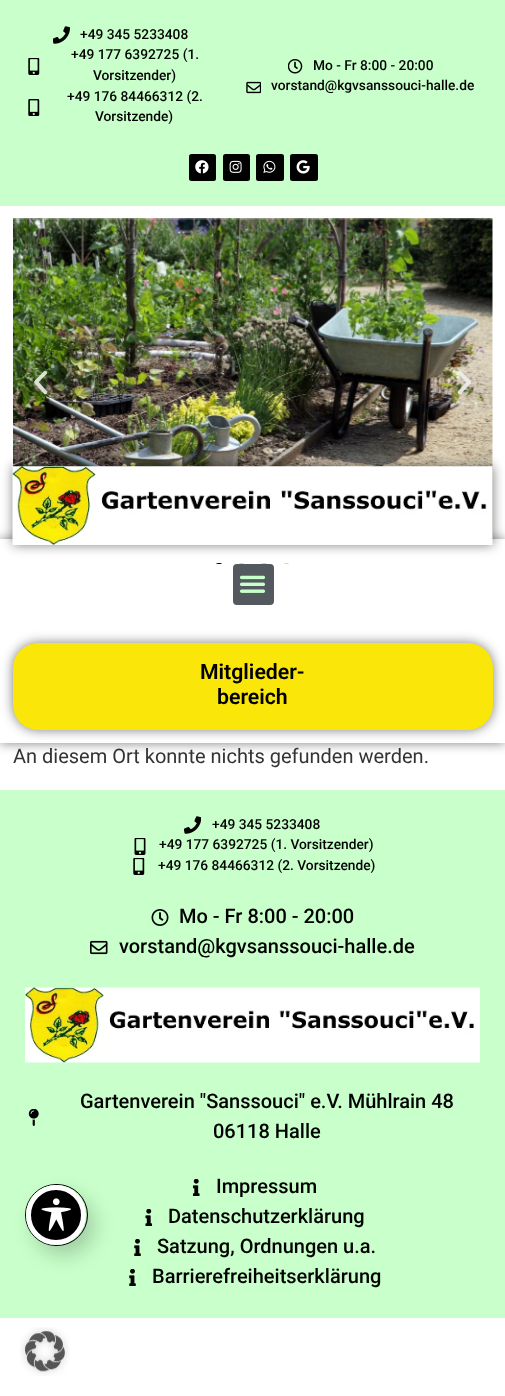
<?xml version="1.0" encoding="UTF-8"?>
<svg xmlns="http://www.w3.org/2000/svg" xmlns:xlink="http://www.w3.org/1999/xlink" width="505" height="1396">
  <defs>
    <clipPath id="clip1"><path d="M 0 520 h 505 v 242 h -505 z m 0 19 h 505 v 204 h -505 z" clip-rule="evenodd" /></clipPath>
  </defs>
  <rect width="100%" height="100%" fill="#ffffff" />
  <rect width="505" height="206" fill="#c8ffca" />
  <image x="53" y="26" width="17" height="18" xlink:href="image1.png" />
  <image x="28" y="58" width="12" height="17" xlink:href="image2.png" />
  <image x="28" y="99" width="12" height="17" xlink:href="image3.png" />
  <image x="288" y="59" width="15" height="15" xlink:href="image4.png" />
  <image x="246" y="81" width="15" height="13" xlink:href="image5.png" />
  <rect x="189" y="154" width="27" height="27" rx="2.5" fill="#000000" />
  <image x="195" y="160" width="14" height="14" xlink:href="image6.png" />
  <rect x="223" y="154" width="27" height="27" rx="2.5" fill="#000000" />
  <image x="229" y="160" width="13" height="13" xlink:href="image7.png" />
  <rect x="256" y="154" width="28" height="27" rx="2.5" fill="#000000" />
  <image x="263" y="160" width="13" height="13" xlink:href="image8.png" />
  <rect x="290" y="154" width="28" height="27" rx="2.5" fill="#000000" />
  <image x="296" y="160" width="14" height="14" xlink:href="image9.png" />
  <image x="13" y="218" width="480" height="321" xlink:href="image10.png" />
  <image x="34" y="370" width="14" height="25" xlink:href="image11.png" />
  <image x="457" y="370" width="14" height="25" xlink:href="image12.png" />
  <rect x="215" y="563" width="8" height="7" rx="3.5" fill="#000000" />
  <circle cx="241.5" cy="566.5" r="3.5" fill="#cccccc" />
  <rect x="260" y="563" width="8" height="7" rx="3.5" fill="#cccccc" />
  <circle cx="286.5" cy="566.5" r="3.5" fill="#cccccc" />
  <rect x="13" y="466" width="480" height="79" fill="#000000" fill-opacity="0.5" filter="blur(6px)" />
  <g clip-path="url(#clip1)">
    <rect y="539" width="505" height="204" fill="#000000" fill-opacity="0.5" filter="blur(6px)" />
  </g>
  <image x="12" y="466" width="481" height="79" xlink:href="image13.png" />
  <rect x="215" y="564" width="75" height="6" fill="#ffffff" />
  <rect x="233" y="564" width="41" height="41" rx="4" fill="#54595f" />
  <image x="239" y="575" width="27" height="18" xlink:href="image14.png" />
  <rect x="13" y="643" width="480" height="87" rx="25" fill="#000000" fill-opacity="0.5" filter="blur(6px)" />
  <rect x="13" y="643" width="480" height="87" rx="25" fill="#fae609" />
  <rect y="790" width="505" height="528" fill="#c8ffca" />
  <rect x="25.5" y="1184.5" width="62" height="61" rx="30.5" fill="none" stroke="#000000" />
  <rect x="34" y="1195" width="60" height="60" rx="30" fill="#000000" fill-opacity="0.2" filter="blur(10px)" />
  <circle cx="56" cy="1215" r="27.5" fill="#000000" stroke="#ffffff" stroke-width="5" />
  <image x="41" y="1198" width="30" height="33" xlink:href="image15.png" />
  <image x="184" y="816" width="17" height="18" xlink:href="image16.png" />
  <image x="134" y="838" width="12" height="17" xlink:href="image17.png" />
  <image x="133" y="858" width="12" height="17" xlink:href="image2.png" />
  <image x="151" y="909" width="18" height="17" xlink:href="image18.png" />
  <image x="90" y="940" width="18" height="15" xlink:href="image19.png" />
  <image x="25" y="987" width="455" height="76" xlink:href="image20.png" />
  <image x="28" y="1109" width="11" height="17" xlink:href="image21.png" />
  <image x="192" y="1179" width="8" height="17" xlink:href="image22.png" />
  <image x="145" y="1209" width="8" height="17" xlink:href="image23.png" />
  <image x="134" y="1239" width="7" height="17" xlink:href="image24.png" />
  <image x="129" y="1269" width="7" height="17" xlink:href="image24.png" />
  <image x="20" y="1327" width="50" height="49" xlink:href="image25.png" />
  <text x="80" y="39" style="font-family: Roboto; font-size: 13.75px; font-weight: 500; fill: #000000">+49 345 5233408</text>
  <text x="71" y="59" style="font-family: Roboto; font-size: 13.75px; font-weight: 500; fill: #000000">+49 177 6392725 (1.</text>
  <text x="93" y="80" style="font-family: Roboto; font-size: 13.75px; font-weight: 500; fill: #000000">Vorsitzender)</text>
  <text x="67" y="101" style="font-family: Roboto; font-size: 13.75px; font-weight: 500; fill: #000000">+49 176 84466312 (2.</text>
  <text x="95" y="121" style="font-family: Roboto; font-size: 13.75px; font-weight: 500; fill: #000000">Vorsitzende)</text>
  <text x="313" y="70" style="font-family: Roboto; font-size: 13.75px; font-weight: 500; fill: #000000">Mo - Fr 8:00 - 20:00</text>
  <text x="271" y="90" style="font-family: Roboto; font-size: 13.75px; font-weight: 500; fill: #000000">vorstand@kgvsanssouci-halle.de</text>
  <text x="200" y="679" style="font-family: Roboto; font-size: 21.25px; font-weight: 600; fill: #000000">Mitglieder-</text>
  <text x="217" y="704" style="font-family: Roboto; font-size: 21.25px; font-weight: 600; fill: #000000">bereich</text>
  <text x="13" y="763" style="font-family: Roboto; font-size: 20px; fill: #333333">An diesem Ort konnte nichts gefunden werden.</text>
  <text x="212" y="829" style="font-family: Roboto; font-size: 13.75px; font-weight: 500; fill: #000000">+49 345 5233408</text>
  <text x="159" y="849" style="font-family: Roboto; font-size: 13.75px; font-weight: 500; fill: #000000">+49 177 6392725 (1. Vorsitzender)</text>
  <text x="158" y="870" style="font-family: Roboto; font-size: 13.75px; font-weight: 500; fill: #000000">+49 176 84466312 (2. Vorsitzende)</text>
  <text x="179" y="923" style="font-family: Roboto; font-size: 20px; font-weight: 500; fill: #000000">Mo - Fr 8:00 - 20:00</text>
  <text x="119" y="953" style="font-family: Roboto; font-size: 20px; font-weight: 500; fill: #000000">vorstand@kgvsanssouci-halle.de</text>
  <text x="80" y="1108" style="font-family: Roboto; font-size: 20px; font-weight: 500; fill: #000000">Gartenverein "Sanssouci" e.V. Mühlrain 48</text>
  <text x="213" y="1138" style="font-family: Roboto; font-size: 20px; font-weight: 500; fill: #000000">06118 Halle</text>
  <text x="216" y="1193" style="font-family: Roboto; font-size: 20px; font-weight: 500; fill: #000000">Impressum</text>
  <text x="168" y="1223" style="font-family: Roboto; font-size: 20px; font-weight: 500; fill: #000000">Datenschutzerklärung</text>
  <text x="157" y="1253" style="font-family: Roboto; font-size: 20px; font-weight: 500; fill: #000000">Satzung, Ordnungen u.a.</text>
  <text x="152" y="1283" style="font-family: Roboto; font-size: 20px; font-weight: 500; fill: #000000">Barrierefreiheitserklärung</text>
</svg>
